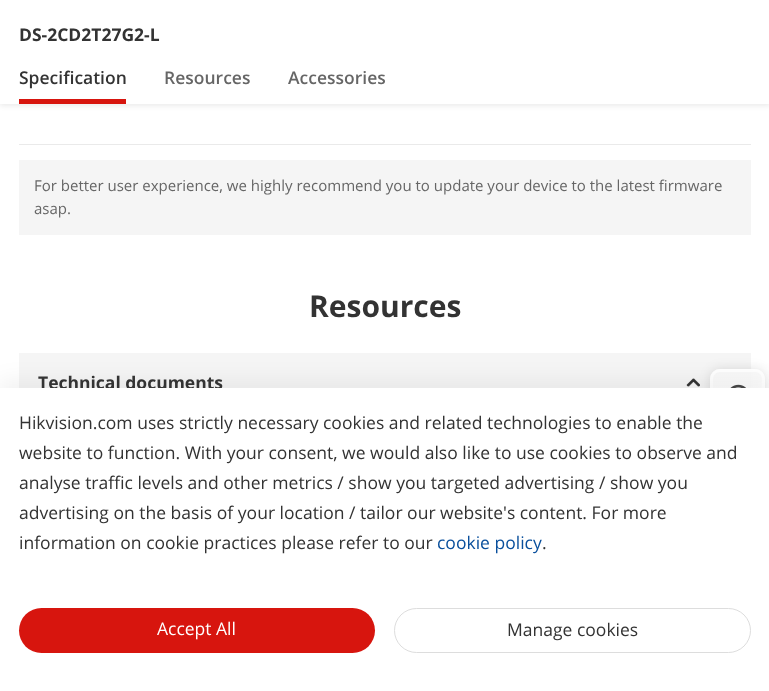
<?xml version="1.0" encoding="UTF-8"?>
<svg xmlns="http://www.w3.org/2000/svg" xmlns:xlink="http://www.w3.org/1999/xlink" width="769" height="691">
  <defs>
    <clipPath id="clip1"><path d="M 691 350 h 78 v 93 h -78 z m 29 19 h 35 c 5.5 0 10 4.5 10 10 v 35 c 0 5.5 -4.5 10 -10 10 h -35 c -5.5 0 -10 -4.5 -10 -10 v -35 c 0 -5.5 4.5 -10 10 -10 z" clip-rule="evenodd" /></clipPath>
    <clipPath id="clip2"><rect x="710" y="369" width="55" height="55" rx="10" /></clipPath>
    <linearGradient id="g1" gradientUnits="userSpaceOnUse" x1="738" y1="321" x2="738" y2="371"><stop offset="0" stop-color="#f8f8f8" stop-opacity="0.9" /><stop offset="0.51" stop-color="#ffffff" stop-opacity="0.9" /><stop offset="1" stop-color="#f8f8f8" stop-opacity="0.9" /></linearGradient>
    <linearGradient id="g2" gradientUnits="userSpaceOnUse" x1="738" y1="371" x2="738" y2="421"><stop offset="0" stop-color="#f8f8f8" stop-opacity="0.9" /><stop offset="0.51" stop-color="#ffffff" stop-opacity="0.9" /><stop offset="1" stop-color="#f8f8f8" stop-opacity="0.9" /></linearGradient>
  </defs>
  <rect width="100%" height="100%" fill="#ffffff" />
  <rect y="3" width="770" height="103" fill="#000000" fill-opacity="0.08" filter="blur(2.5px)" />
  <rect width="769" height="104" fill="#ffffff" />
  <rect x="19" y="99" width="107" height="5" fill="#d7150e" />
  <rect x="19" y="144" width="732" height="1" fill="#eaeaea" />
  <rect x="19" y="160" width="732" height="75" fill="#f5f5f5" />
  <rect x="19" y="353" width="732" height="35" fill="#f5f5f5" />
  <image x="686" y="378" width="14" height="9" xlink:href="image1.png" />
  <g clip-path="url(#clip1)">
    <rect x="710" y="369" width="55" height="55" rx="10" fill="#000000" fill-opacity="0.11" filter="blur(6px)" />
  </g>
  <g clip-path="url(#clip2)">
    <rect x="710" y="369" width="55" height="2" fill="url(#g1)" />
    <rect x="710" y="371" width="55" height="17" fill="url(#g2)" />
  </g>
  <rect x="711.5" y="370.5" width="52" height="52" rx="8.5" fill="none" stroke="#ffffff" stroke-opacity="0.9" stroke-width="3" />
  <image x="730" y="384" width="16" height="4" xlink:href="image2.png" />
  <rect y="379" width="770" height="304" fill="#000000" fill-opacity="0.05" filter="blur(10px)" />
  <text x="19" y="41" style="font-family: Open Sans; font-size: 17.5px; font-weight: bold; fill: #333333">DS-2CD2T27G2-L</text>
  <text x="19" y="84" style="font-family: Open Sans; font-size: 17.5px; font-weight: 600; fill: #333333">Specification</text>
  <text x="164" y="84" style="font-family: Open Sans; font-size: 17.5px; font-weight: 600; fill: #666666">Resources</text>
  <text x="288" y="84" style="font-family: Open Sans; font-size: 17.5px; font-weight: 600; fill: #666666">Accessories</text>
  <text x="34" y="191" style="font-family: Open Sans; font-size: 15px; fill: #666666">For better user experience, we highly recommend you to update your device to the latest firmware</text>
  <text x="34" y="214" style="font-family: Open Sans; font-size: 15px; fill: #666666">asap.</text>
  <text x="309" y="317" style="font-family: Open Sans; font-size: 30px; font-weight: bold; fill: #333333">Resources</text>
  <text x="38" y="389" style="font-family: Open Sans; font-size: 17.5px; font-weight: bold; fill: #333333">Technical documents</text>
  <rect y="388" width="769" height="303" fill="#ffffff" />
  <text x="19" y="429" style="font-family: Open Sans; font-size: 17.5px; fill: #333333">Hikvision.com uses strictly necessary cookies and related technologies to enable the</text>
  <text x="19" y="459" style="font-family: Open Sans; font-size: 17.5px; fill: #333333">website to function. With your consent, we would also like to use cookies to observe and</text>
  <text x="19" y="489" style="font-family: Open Sans; font-size: 17.5px; fill: #333333">analyse traffic levels and other metrics / show you targeted advertising / show you</text>
  <text x="19" y="519" style="font-family: Open Sans; font-size: 17.5px; fill: #333333">advertising on the basis of your location / tailor our website's content. For more</text>
  <text x="19" y="549" style="font-family: Open Sans; font-size: 17.5px; fill: #333333">information on cookie practices please refer to our</text>
  <text x="437" y="549" style="font-family: Open Sans; font-size: 17.5px; fill: #094f9c">cookie policy</text>
  <text x="542" y="549" style="font-family: Open Sans; font-size: 17.5px; fill: #333333">.</text>
  <rect x="19" y="608" width="356" height="45" rx="22.5" fill="#d7150e" />
  <text x="157" y="635" style="font-family: Open Sans; font-size: 17.5px; fill: #ffffff">Accept All</text>
  <rect x="394.5" y="608.5" width="356" height="44" rx="22" fill="none" stroke="#dddddd" />
  <text x="507" y="636" style="font-family: Open Sans; font-size: 17.5px; fill: #333333">Manage cookies</text>
</svg>
